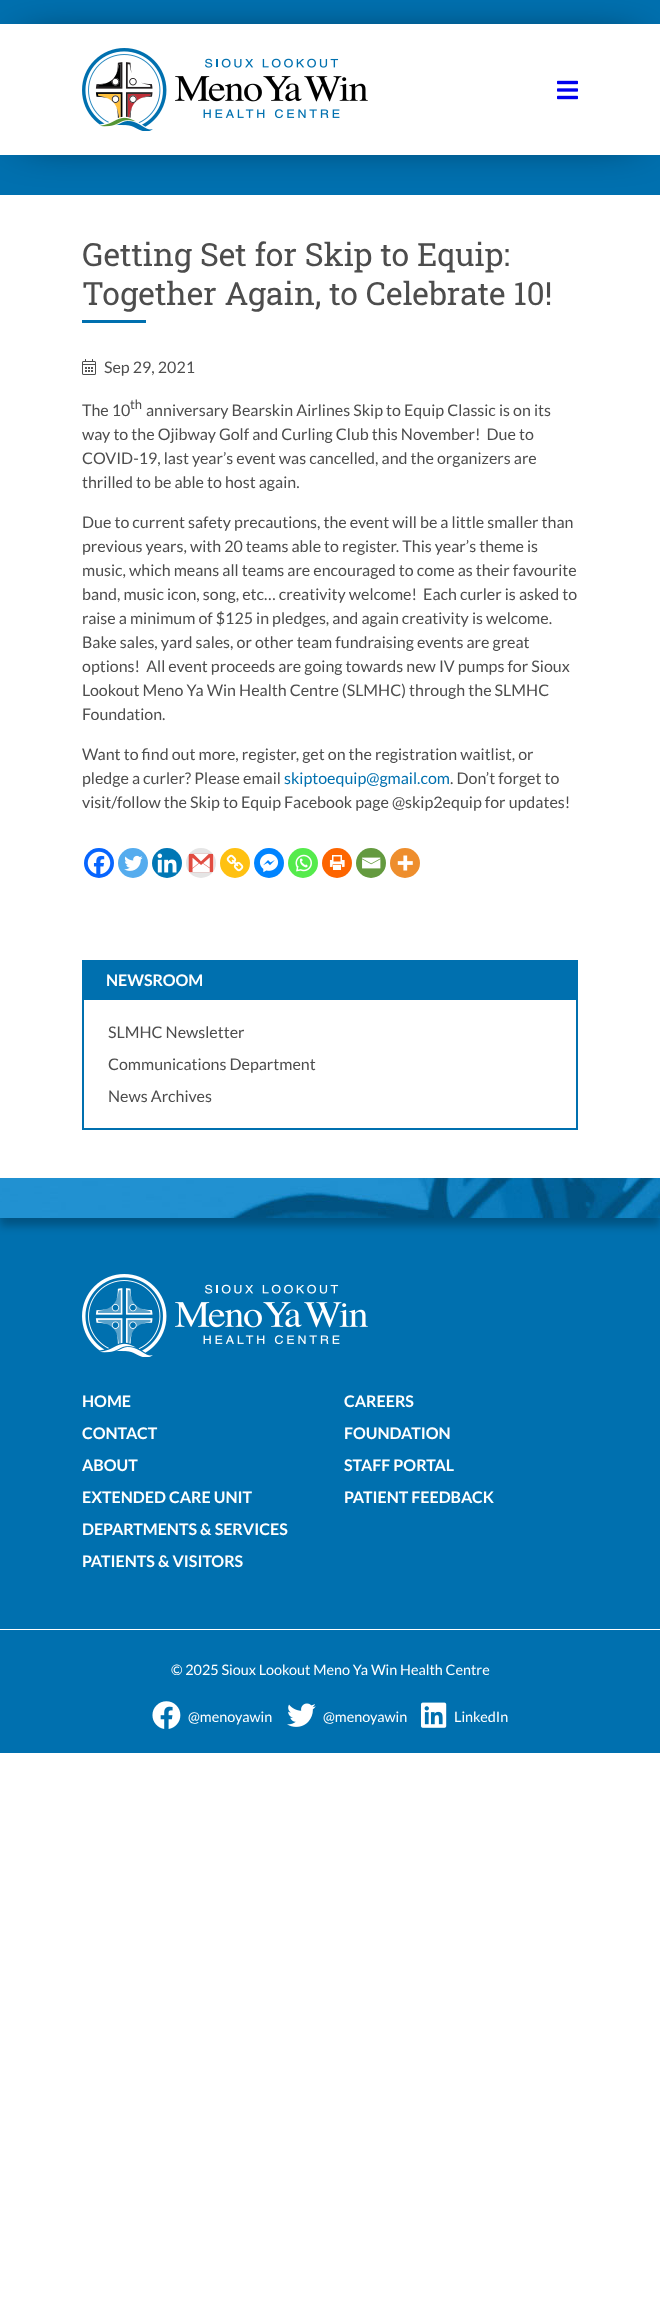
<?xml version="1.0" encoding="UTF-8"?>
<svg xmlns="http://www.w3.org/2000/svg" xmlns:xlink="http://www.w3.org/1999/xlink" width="660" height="2309">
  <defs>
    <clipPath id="clip1"><path d="M 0 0 h 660 v 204 h -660 z m 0 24 h 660 v 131 h -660 z" clip-rule="evenodd" /></clipPath>
  </defs>
  <rect width="100%" height="100%" fill="#ffffff" />
  <rect width="660" height="24" fill="#0070af" />
  <rect y="155" width="660" height="40" fill="#0070af" />
  <g clip-path="url(#clip1)">
    <rect x="24" y="48" width="612" height="83" fill="#000000" filter="blur(24px)" />
  </g>
  <image x="82" y="48" width="286" height="83" xlink:href="image1.png" />
  <image x="557" y="80" width="21" height="20" xlink:href="image2.png" />
  <rect x="82" y="320" width="64" height="3" fill="#0070af" />
  <image x="82" y="359" width="14" height="16" xlink:href="image3.png" />
  <circle cx="99" cy="863" r="15" fill="#0765fe" />
  <image x="87" y="851" width="24" height="24" xlink:href="image4.png" />
  <circle cx="133" cy="863" r="15" fill="#55acee" />
  <image x="124" y="855" width="19" height="16" xlink:href="image5.png" />
  <circle cx="167" cy="863" r="15" fill="#0077b5" />
  <image x="157" y="853" width="20" height="20" xlink:href="image6.png" />
  <circle cx="201" cy="863" r="15" fill="#e5e5e5" />
  <image x="188" y="853" width="26" height="20" xlink:href="image7.png" />
  <circle cx="235" cy="863" r="15" fill="#ffc112" />
  <image x="226" y="854" width="18" height="18" xlink:href="image8.png" />
  <circle cx="269" cy="863" r="15" fill="#0084ff" />
  <image x="259" y="853" width="20" height="20" xlink:href="image9.png" />
  <circle cx="303" cy="863" r="15" fill="#55eb4c" />
  <image x="295" y="854" width="17" height="18" xlink:href="image10.png" />
  <circle cx="337" cy="863" r="15" fill="#fd6500" />
  <image x="329" y="855" width="16" height="15" xlink:href="image11.png" />
  <circle cx="371" cy="863" r="15" fill="#649a3f" />
  <image x="362" y="857" width="19" height="12" xlink:href="image12.png" />
  <circle cx="405" cy="863" r="15" fill="#ee8e2d" />
  <image x="397" y="855" width="16" height="16" xlink:href="image13.png" />
  <rect x="82" y="960" width="496" height="40" fill="#0070af" />
  <rect x="576" y="1000" width="2" height="130" fill="#0070af" />
  <rect x="82" y="1128" width="496" height="2" fill="#0070af" />
  <rect x="82" y="1000" width="2" height="130" fill="#0070af" />
  <rect y="1218" width="660" height="411" fill="#0070af" />
  <rect y="1186" width="660" height="40" fill="#000000" fill-opacity="0.25" filter="blur(4px)" />
  <image x="0" y="1178" width="660" height="40" xlink:href="image14.png" />
  <image x="82" y="1274" width="286" height="83" xlink:href="image15.png" />
  <rect y="1630" width="660" height="123" fill="#0070af" />
  <image x="152" y="1701" width="29" height="28" xlink:href="image16.png" />
  <image x="287" y="1703" width="29" height="24" xlink:href="image17.png" />
  <image x="421" y="1702" width="26" height="26" xlink:href="image18.png" />
  <text x="82" y="266" style="font-family: Roboto Slab; font-size: 32px; fill: #4d4d4d">Getting Set for Skip to Equip:</text>
  <text x="82" y="305" style="font-family: Roboto Slab; font-size: 32px; fill: #4d4d4d">Together Again, to Celebrate 10!</text>
  <text x="104" y="373" style="font-family: Lato; font-size: 16px; fill: #4d4d4d">Sep 29, 2021</text>
  <text x="82" y="416" style="font-family: Lato; font-size: 16px; fill: #4d4d4d">The 10</text>
  <text x="130" y="409" style="font-family: Lato; font-size: 13px; fill: #4d4d4d">th</text>
  <text x="146" y="416" style="font-family: Lato; font-size: 16px; fill: #4d4d4d">anniversary Bearskin Airlines Skip to Equip Classic is on its</text>
  <text x="82" y="440" style="font-family: Lato; font-size: 16px; fill: #4d4d4d" xml:space="preserve">way to the Ojibway Golf and Curling Club this November!  Due to</text>
  <text x="82" y="464" style="font-family: Lato; font-size: 16px; fill: #4d4d4d">COVID-19, last year’s event was cancelled, and the organizers are</text>
  <text x="82" y="488" style="font-family: Lato; font-size: 16px; fill: #4d4d4d">thrilled to be able to host again.</text>
  <text x="82" y="528" style="font-family: Lato; font-size: 16px; fill: #4d4d4d">Due to current safety precautions, the event will be a little smaller than</text>
  <text x="82" y="552" style="font-family: Lato; font-size: 16px; fill: #4d4d4d">previous years, with 20 teams able to register. This year’s theme is</text>
  <text x="82" y="576" style="font-family: Lato; font-size: 16px; fill: #4d4d4d">music, which means all teams are encouraged to come as their favourite</text>
  <text x="82" y="600" style="font-family: Lato; font-size: 16px; fill: #4d4d4d" xml:space="preserve">band, music icon, song, etc… creativity welcome!  Each curler is asked to</text>
  <text x="82" y="624" style="font-family: Lato; font-size: 16px; fill: #4d4d4d">raise a minimum of $125 in pledges, and again creativity is welcome.</text>
  <text x="82" y="648" style="font-family: Lato; font-size: 16px; fill: #4d4d4d">Bake sales, yard sales, or other team fundraising events are great</text>
  <text x="82" y="672" style="font-family: Lato; font-size: 16px; fill: #4d4d4d" xml:space="preserve">options!  All event proceeds are going towards new IV pumps for Sioux</text>
  <text x="82" y="696" style="font-family: Lato; font-size: 16px; fill: #4d4d4d">Lookout Meno Ya Win Health Centre (SLMHC) through the SLMHC</text>
  <text x="82" y="720" style="font-family: Lato; font-size: 16px; fill: #4d4d4d">Foundation.</text>
  <text x="82" y="760" style="font-family: Lato; font-size: 16px; fill: #4d4d4d">Want to find out more, register, get on the registration waitlist, or</text>
  <text x="82" y="784" style="font-family: Lato; font-size: 16px; fill: #4d4d4d">pledge a curler? Please email</text>
  <text x="284" y="784" style="font-family: Lato; font-size: 16px; fill: #0070af">skiptoequip@gmail.com</text>
  <text x="450" y="784" style="font-family: Lato; font-size: 16px; fill: #4d4d4d">. Don’t forget to</text>
  <text x="82" y="808" style="font-family: Lato; font-size: 16px; fill: #4d4d4d">visit/follow the Skip to Equip Facebook page @skip2equip for updates!</text>
  <text x="106" y="986" style="font-family: Lato; font-size: 16px; font-weight: bold; fill: #ffffff">NEWSROOM</text>
  <text x="108" y="1038" style="font-family: Lato; font-size: 16px; fill: #4d4d4d">SLMHC Newsletter</text>
  <text x="108" y="1070" style="font-family: Lato; font-size: 16px; fill: #4d4d4d">Communications Department</text>
  <text x="108" y="1102" style="font-family: Lato; font-size: 16px; fill: #4d4d4d">News Archives</text>
  <text x="82" y="1407" style="font-family: Lato; font-size: 16px; font-weight: bold; fill: #ffffff">HOME</text>
  <text x="82" y="1439" style="font-family: Lato; font-size: 16px; font-weight: bold; fill: #ffffff">CONTACT</text>
  <text x="82" y="1471" style="font-family: Lato; font-size: 16px; font-weight: bold; fill: #ffffff">ABOUT</text>
  <text x="82" y="1503" style="font-family: Lato; font-size: 16px; font-weight: bold; fill: #ffffff">EXTENDED CARE UNIT</text>
  <text x="82" y="1535" style="font-family: Lato; font-size: 16px; font-weight: bold; fill: #ffffff">DEPARTMENTS &amp; SERVICES</text>
  <text x="82" y="1567" style="font-family: Lato; font-size: 16px; font-weight: bold; fill: #ffffff">PATIENTS &amp; VISITORS</text>
  <text x="344" y="1407" style="font-family: Lato; font-size: 16px; font-weight: bold; fill: #ffffff">CAREERS</text>
  <text x="344" y="1439" style="font-family: Lato; font-size: 16px; font-weight: bold; fill: #ffffff">FOUNDATION</text>
  <text x="344" y="1471" style="font-family: Lato; font-size: 16px; font-weight: bold; fill: #ffffff">STAFF PORTAL</text>
  <text x="344" y="1503" style="font-family: Lato; font-size: 16px; font-weight: bold; fill: #ffffff">PATIENT FEEDBACK</text>
  <text x="171" y="1675" style="font-family: Lato; font-size: 14.4px; fill: #ffffff">© 2025 Sioux Lookout Meno Ya Win Health Centre</text>
  <text x="188" y="1722" style="font-family: Lato; font-size: 14.4px; fill: #ffffff">@menoyawin</text>
  <text x="323" y="1722" style="font-family: Lato; font-size: 14.4px; fill: #ffffff">@menoyawin</text>
  <text x="454" y="1722" style="font-family: Lato; font-size: 14.4px; fill: #ffffff">LinkedIn</text>
</svg>
